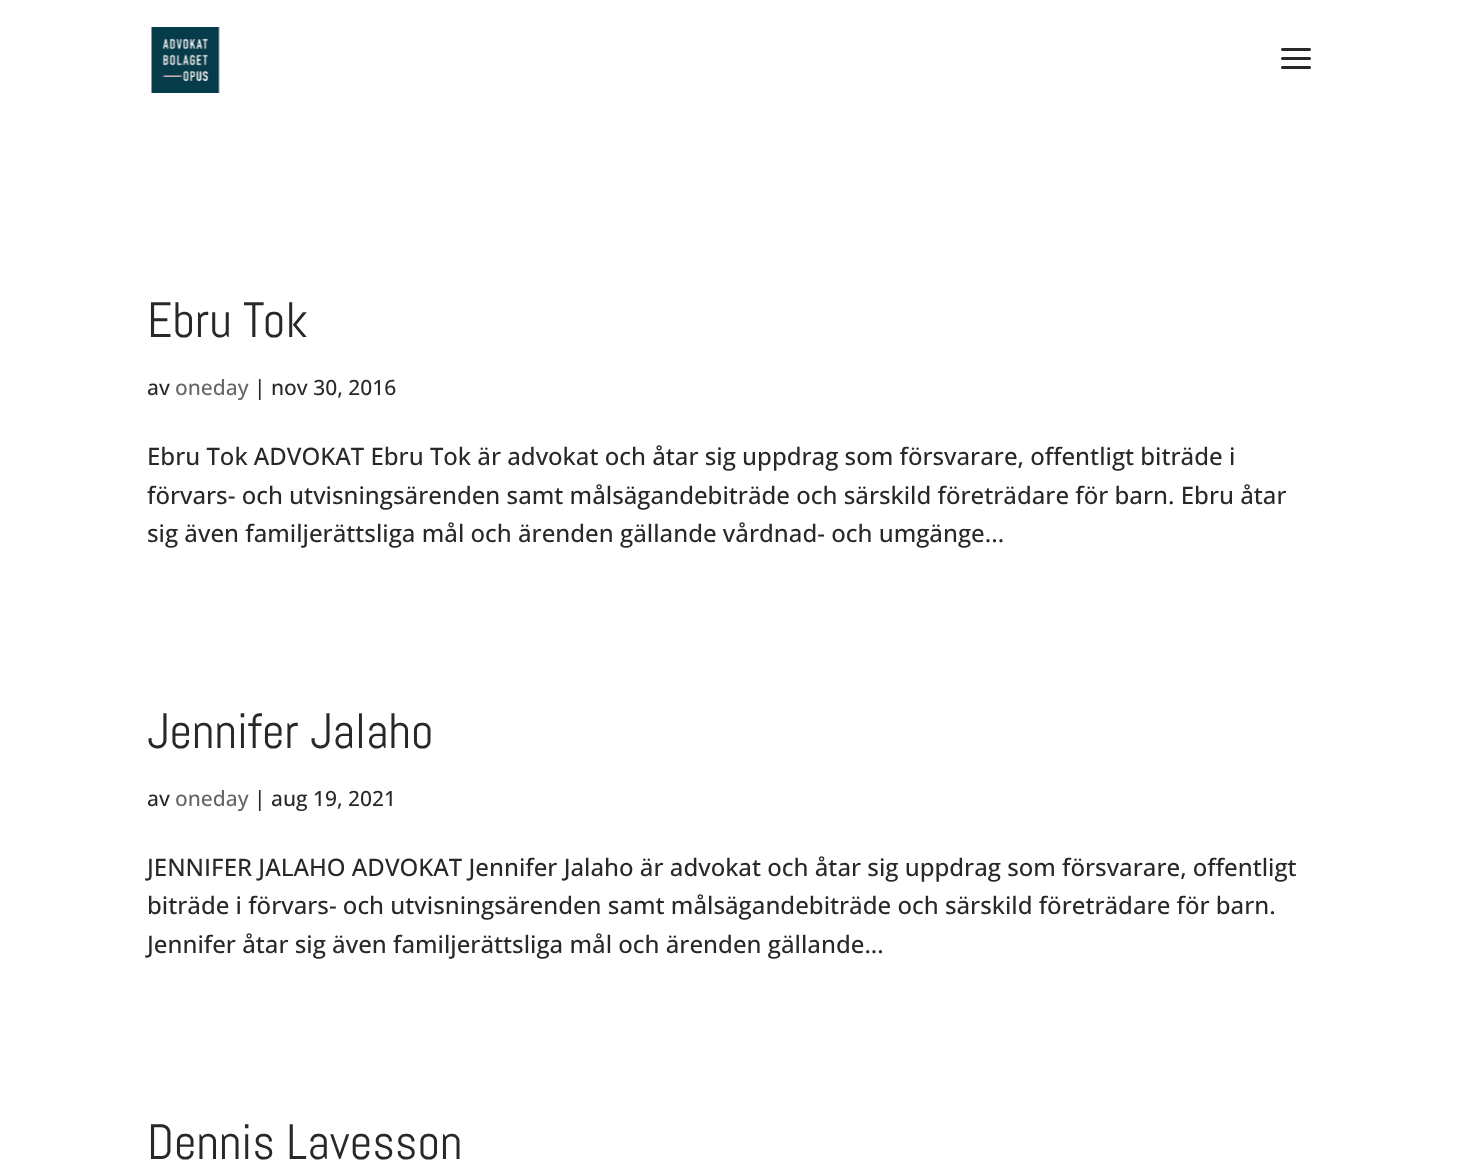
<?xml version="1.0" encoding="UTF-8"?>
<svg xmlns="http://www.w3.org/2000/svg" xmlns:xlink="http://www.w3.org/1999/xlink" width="1466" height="1171">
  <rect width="100%" height="100%" fill="#ffffff" />
  <image x="151" y="27" width="69" height="66" xlink:href="image1.png" />
  <image x="1281" y="48" width="30" height="21" xlink:href="image2.png" />
  <text x="147" y="337" style="font-family: Abel; font-size: 49.5px; fill: #282828">Ebru Tok</text>
  <text x="147" y="395" style="font-family: Open Sans; font-size: 21px; font-weight: 500; fill: #282828">av</text>
  <text x="175" y="395" style="font-family: Open Sans; font-size: 21px; font-weight: 500; fill: #666666">oneday</text>
  <text x="254" y="395" style="font-family: Open Sans; font-size: 21px; font-weight: 500; fill: #282828">| nov 30, 2016</text>
  <text x="147" y="465" style="font-family: Open Sans; font-size: 24px; font-weight: 500; fill: #282828">Ebru Tok ADVOKAT Ebru Tok är advokat och åtar sig uppdrag som försvarare, offentligt biträde i</text>
  <text x="147" y="504" style="font-family: Open Sans; font-size: 24px; font-weight: 500; fill: #282828">förvars- och utvisningsärenden samt målsägandebiträde och särskild företrädare för barn. Ebru åtar</text>
  <text x="147" y="542" style="font-family: Open Sans; font-size: 24px; font-weight: 500; fill: #282828">sig även familjerättsliga mål och ärenden gällande vårdnad- och umgänge...</text>
  <text x="147" y="748" style="font-family: Abel; font-size: 49.5px; fill: #282828">Jennifer Jalaho</text>
  <text x="147" y="806" style="font-family: Open Sans; font-size: 21px; font-weight: 500; fill: #282828">av</text>
  <text x="175" y="806" style="font-family: Open Sans; font-size: 21px; font-weight: 500; fill: #666666">oneday</text>
  <text x="254" y="806" style="font-family: Open Sans; font-size: 21px; font-weight: 500; fill: #282828">| aug 19, 2021</text>
  <text x="147" y="876" style="font-family: Open Sans; font-size: 24px; font-weight: 500; fill: #282828">JENNIFER JALAHO ADVOKAT Jennifer Jalaho är advokat och åtar sig uppdrag som försvarare, offentligt</text>
  <text x="147" y="914" style="font-family: Open Sans; font-size: 24px; font-weight: 500; fill: #282828">biträde i förvars- och utvisningsärenden samt målsägandebiträde och särskild företrädare för barn.</text>
  <text x="147" y="953" style="font-family: Open Sans; font-size: 24px; font-weight: 500; fill: #282828">Jennifer åtar sig även familjerättsliga mål och ärenden gällande...</text>
  <text x="147" y="1159" style="font-family: Abel; font-size: 49.5px; fill: #282828">Dennis Lavesson</text>
</svg>
